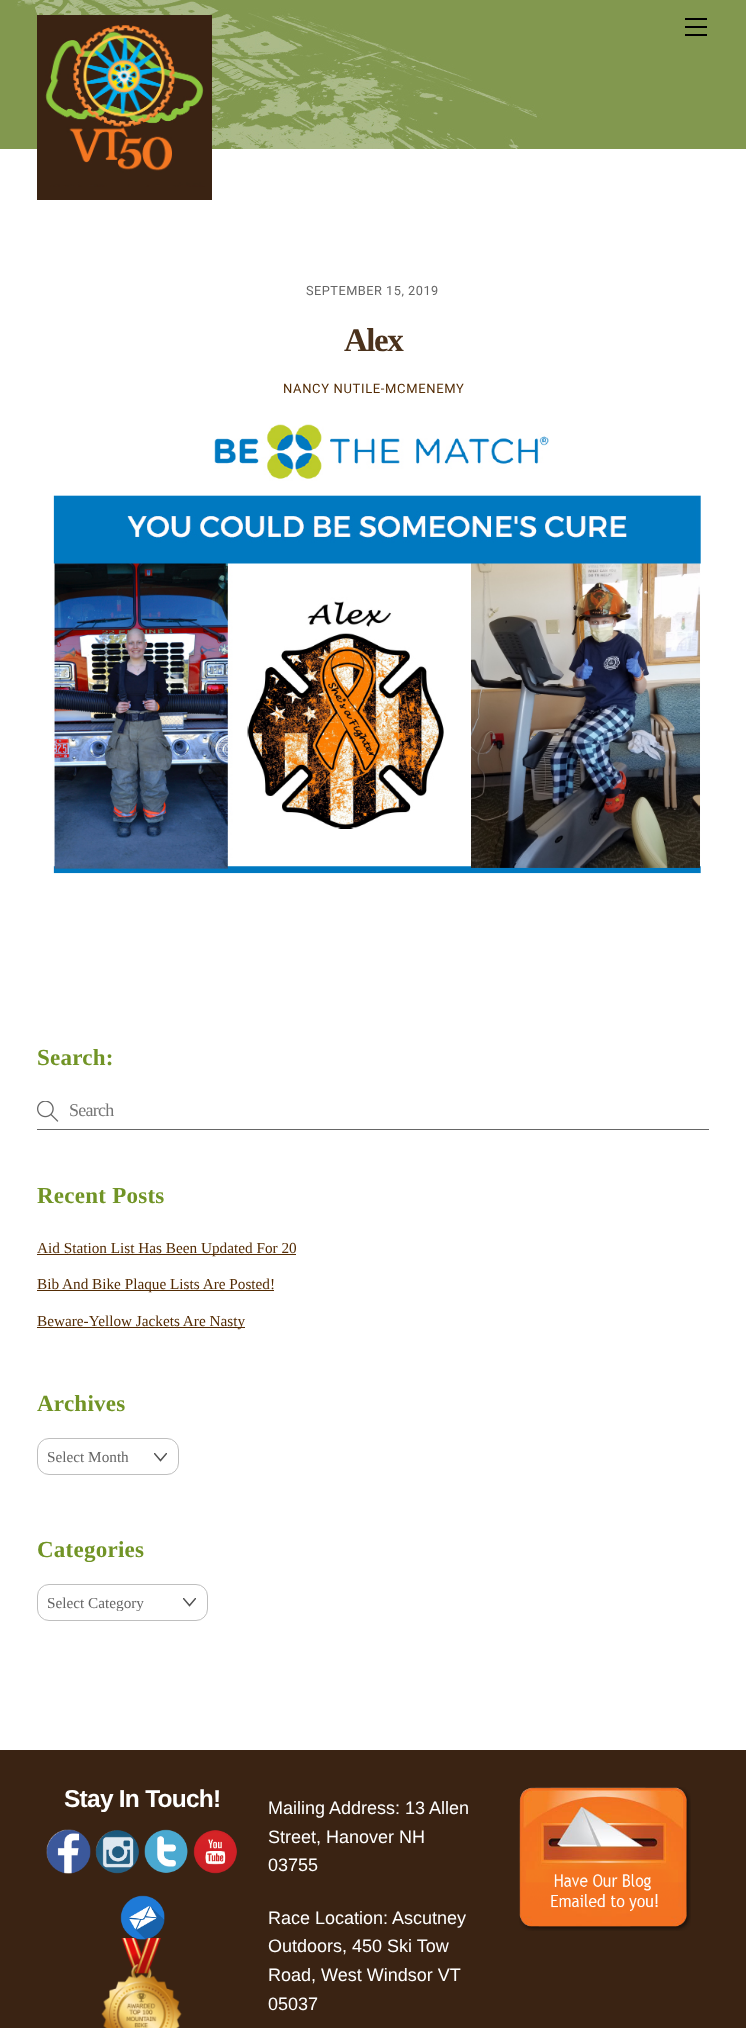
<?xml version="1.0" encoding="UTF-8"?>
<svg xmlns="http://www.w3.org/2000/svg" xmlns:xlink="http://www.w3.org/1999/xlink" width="746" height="2028">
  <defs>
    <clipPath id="clip1"><rect x="154" y="1453" width="13" height="12" /></clipPath>
    <clipPath id="clip2"><rect x="183" y="1598" width="13" height="13" /></clipPath>
    <clipPath id="clip3"><rect x="47" y="1594" width="129" height="17" /></clipPath>
  </defs>
  <rect width="100%" height="100%" fill="#ffffff" />
  <image x="0" y="0" width="746" height="149" xlink:href="image1.png" />
  <image x="37" y="15" width="175" height="185" xlink:href="image2.png" />
  <rect x="685" y="34" width="22" height="2" fill="#000000" />
  <rect x="685" y="18" width="22" height="2" fill="#000000" />
  <rect x="685" y="26" width="22" height="2" fill="#000000" />
  <image x="52" y="424" width="649" height="450" xlink:href="image3.png" />
  <rect x="37" y="1129" width="672" height="1" fill="#666666" />
  <image x="37" y="1101" width="22" height="21" xlink:href="image4.png" />
  <rect x="37" y="1254" width="259" height="1" fill="#542c05" />
  <rect x="37" y="1290" width="237" height="1" fill="#542c05" />
  <rect x="37" y="1327" width="208" height="1" fill="#542c05" />
  <g clip-path="url(#clip1)">
    <path d="M 154.5 1453.5 l 6 7 l 6 -7" fill="none" stroke="#535353" stroke-width="1.5" stroke-linecap="round" />
  </g>
  <rect x="37.5" y="1438.5" width="141" height="36" rx="11.5" fill="none" stroke="#bfbfbf" />
  <g clip-path="url(#clip2)">
    <path d="M 183.5 1598.5 l 6 7 l 6 -7" fill="none" stroke="#535353" stroke-width="1.5" stroke-linecap="round" />
  </g>
  <rect x="37.5" y="1584.5" width="170" height="36" rx="11.5" fill="none" stroke="#bfbfbf" />
  <rect y="1750" width="746" height="278" fill="#3a2313" />
  <image x="46" y="1829" width="45" height="45" xlink:href="image5.png" />
  <image x="95" y="1830" width="44" height="44" xlink:href="image6.png" />
  <image x="144" y="1829" width="44" height="44" xlink:href="image7.png" />
  <image x="193" y="1830" width="44" height="44" xlink:href="image8.png" />
  <image x="120" y="1895" width="45" height="45" xlink:href="image9.png" />
  <image x="101" y="1938" width="81" height="90" xlink:href="image10.png" />
  <image x="519" y="1787" width="172" height="144" xlink:href="image11.png" />
  <text x="306" y="295" style="font-family: Roboto; font-size: 12.75px; letter-spacing: 0.5px; fill: #666666">SEPTEMBER 15, 2019</text>
  <text x="344" y="351" style="font-family: Liberation Serif; font-size: 33px; font-weight: bold; letter-spacing: -1.5px; fill: #4b321c">Alex</text>
  <text x="283" y="393" style="font-family: Roboto; font-size: 13px; letter-spacing: 0.65px; fill: #542c05">NANCY NUTILE-MCMENEMY</text>
  <text x="37" y="1065" style="font-family: Liberation Serif; font-size: 23px; font-weight: bold; letter-spacing: 0.25px; fill: #719426">Search:</text>
  <text x="69" y="1116" style="font-family: Liberation Serif; font-size: 18px; letter-spacing: -0.75px; fill: #757575">Search</text>
  <text x="37" y="1203" style="font-family: Liberation Serif; font-size: 23px; font-weight: bold; letter-spacing: 0.25px; fill: #719426">Recent Posts</text>
  <text x="37" y="1253" style="font-family: Liberation Serif; font-size: 15.25px; fill: #542c05">Aid Station List Has Been Updated For 20</text>
  <text x="37" y="1289" style="font-family: Liberation Serif; font-size: 15.25px; fill: #542c05">Bib And Bike Plaque Lists Are Posted!</text>
  <text x="37" y="1326" style="font-family: Liberation Serif; font-size: 15.25px; fill: #542c05">Beware-Yellow Jackets Are Nasty</text>
  <text x="37" y="1411" style="font-family: Liberation Serif; font-size: 23px; font-weight: bold; letter-spacing: 0.25px; fill: #719426">Archives</text>
  <text x="47" y="1462" style="font-family: Liberation Serif; font-size: 15.25px; fill: #666666">Select Month</text>
  <text x="37" y="1557" style="font-family: Liberation Serif; font-size: 23px; font-weight: bold; letter-spacing: 0.25px; fill: #719426">Categories</text>
  <g clip-path="url(#clip3)">
    <text x="47" y="1608" style="font-family: Liberation Serif; font-size: 15.25px; fill: #666666">Select Category</text>
  </g>
  <text x="64" y="1807" style="font-family: Liberation Sans; font-size: 24.5px; font-weight: bold; letter-spacing: -0.75px; fill: #ffffff">Stay In Touch!</text>
  <text x="268" y="1814" style="font-family: Liberation Sans; font-size: 18px; fill: #ffffff">Mailing Address: 13 Allen</text>
  <text x="268" y="1843" style="font-family: Liberation Sans; font-size: 18px; fill: #ffffff">Street, Hanover NH</text>
  <text x="268" y="1871" style="font-family: Liberation Sans; font-size: 18px; fill: #ffffff">03755</text>
  <text x="268" y="1924" style="font-family: Liberation Sans; font-size: 18px; fill: #ffffff">Race Location: Ascutney</text>
  <text x="268" y="1952" style="font-family: Liberation Sans; font-size: 18px; fill: #ffffff">Outdoors, 450 Ski Tow</text>
  <text x="268" y="1981" style="font-family: Liberation Sans; font-size: 18px; fill: #ffffff">Road, West Windsor VT</text>
  <text x="268" y="2010" style="font-family: Liberation Sans; font-size: 18px; fill: #ffffff">05037</text>
</svg>
